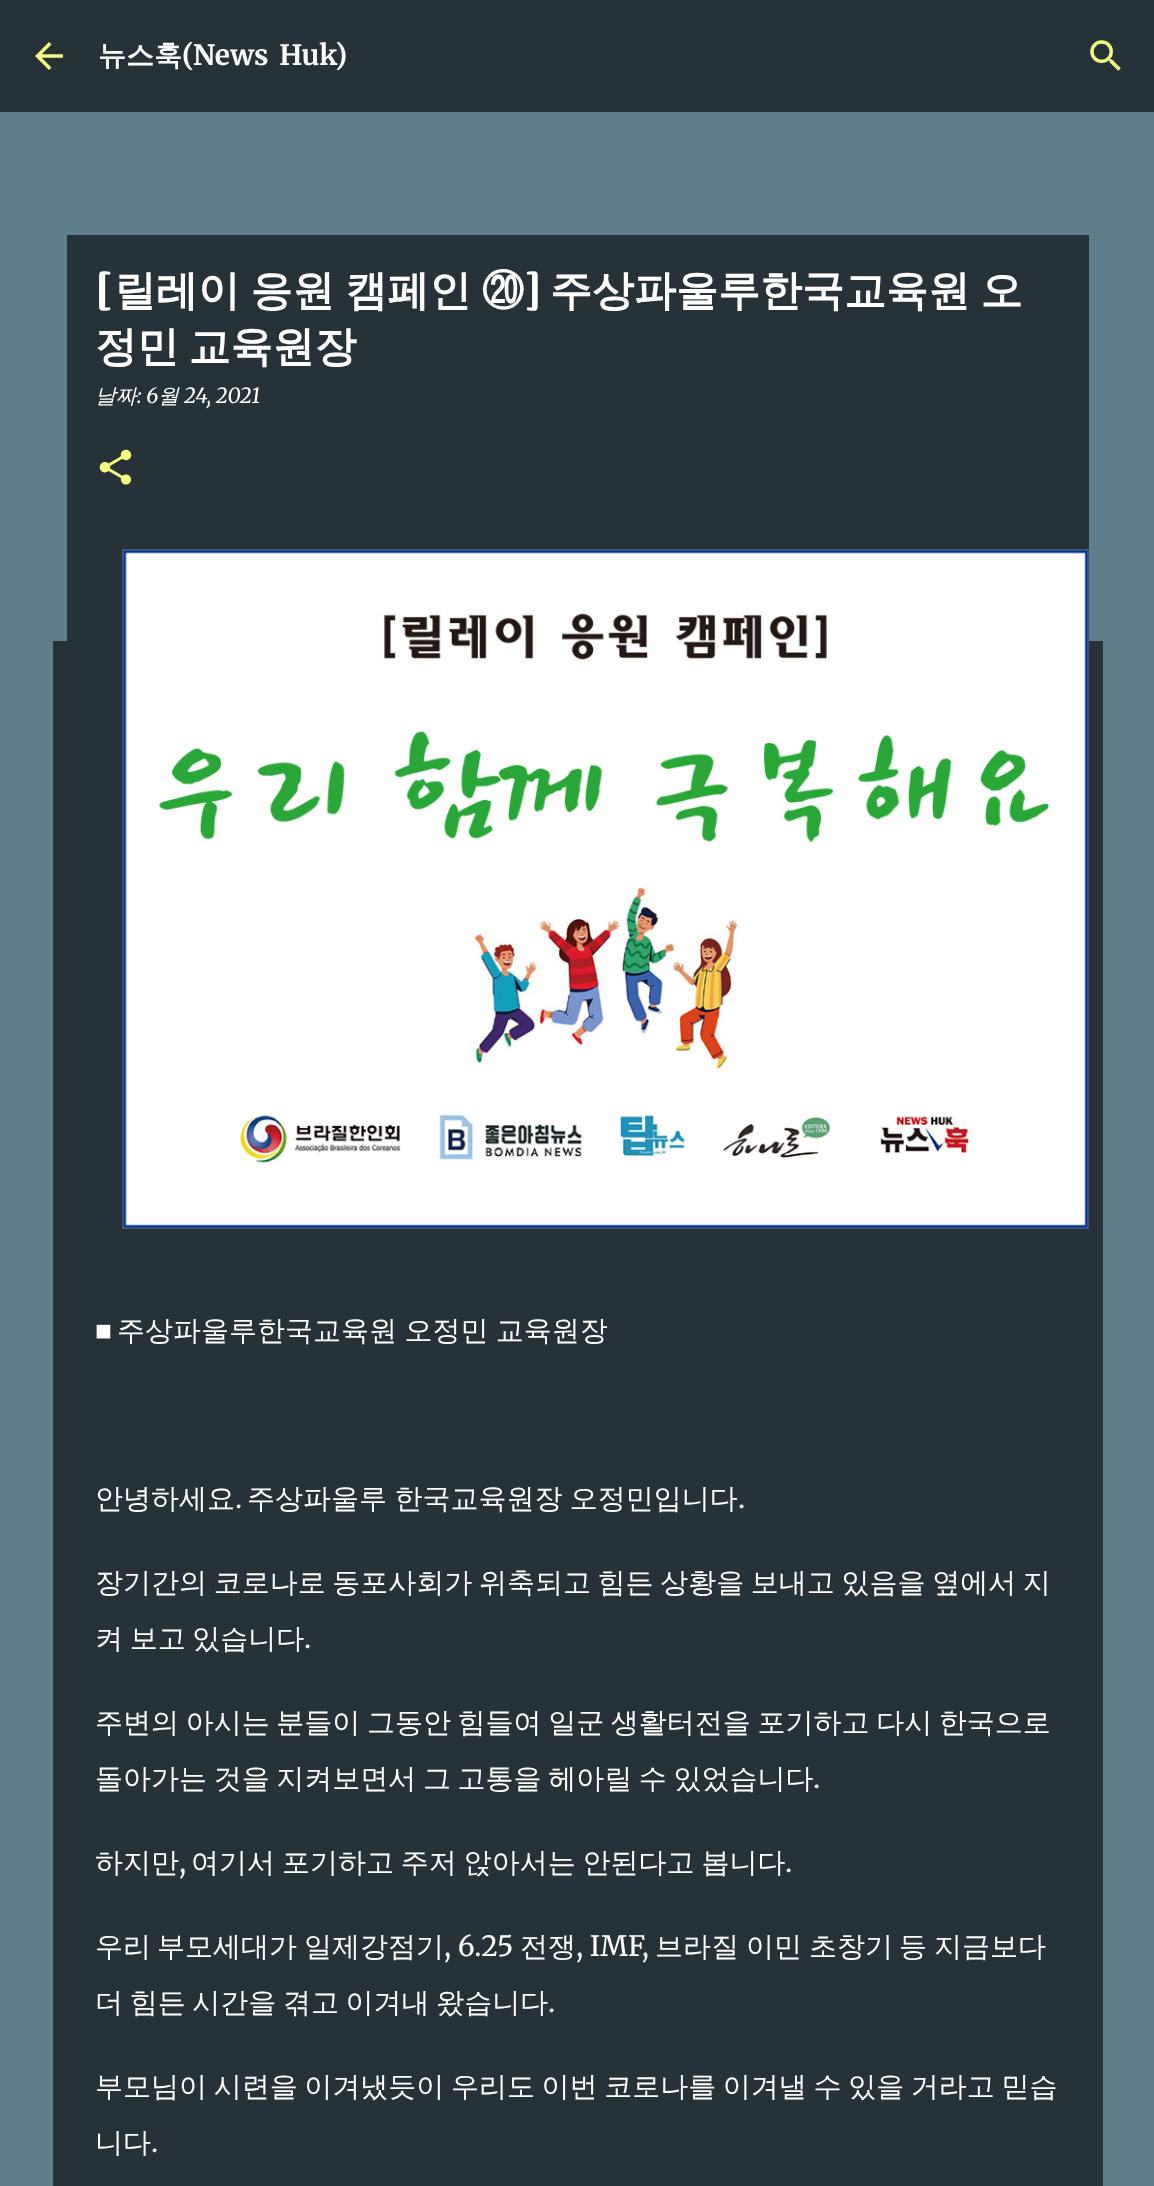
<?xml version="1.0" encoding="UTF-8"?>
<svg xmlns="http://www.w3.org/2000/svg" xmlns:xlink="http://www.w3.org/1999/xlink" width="1154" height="2186">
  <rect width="100%" height="100%" fill="#607d8b" />
  <rect width="1154" height="112" fill="#263238" />
  <image x="35" y="42" width="28" height="28" xlink:href="image1.png" />
  <image x="1090" y="40" width="31" height="31" xlink:href="image2.png" />
  <rect x="53" y="641" width="1050" height="1545" fill="#263238" />
  <rect x="67" y="235" width="1022" height="406" fill="#263238" />
  <image x="99" y="449" width="33" height="36" xlink:href="image3.png" />
  <image x="122" y="549" width="967" height="680" xlink:href="image4.png" />
  <text x="98" y="65" style="font-family: WenQuanYi Zen Hei; font-size: 28px; font-weight: bold; fill: #ffffff">뉴스훅</text>
  <text x="182" y="65" word-spacing="4" style="font-family: Merriweather; font-size: 28px; font-weight: bold; fill: #ffffff">(News Huk)</text>
  <text x="95" y="305" style="font-family: Merriweather; font-size: 42px; font-weight: 900; fill: #ffffff">[</text>
  <text x="114" y="305" word-spacing="-2" style="font-family: WenQuanYi Zen Hei; font-size: 42px; font-weight: bold; fill: #ffffff">릴레이 응원 캠페인 ⑳</text>
  <text x="523" y="305" style="font-family: Merriweather; font-size: 42px; font-weight: 900; fill: #ffffff">]</text>
  <text x="550" y="305" word-spacing="-2" style="font-family: WenQuanYi Zen Hei; font-size: 42px; font-weight: bold; fill: #ffffff">주상파울루한국교육원 오</text>
  <text x="95" y="361" word-spacing="-3" style="font-family: WenQuanYi Zen Hei; font-size: 42px; font-weight: bold; fill: #ffffff">정민 교육원장</text>
  <text x="95" y="403" style="font-family: WenQuanYi Zen Hei; font-size: 21px; font-weight: 500; font-style: italic; fill: #ffffff">날짜</text>
  <text x="137" y="403" style="font-family: Merriweather; font-size: 21px; font-style: italic; fill: #ffffff">: 6</text>
  <text x="158" y="403" style="font-family: WenQuanYi Zen Hei; font-size: 21px; font-weight: 500; font-style: italic; fill: #ffffff">월</text>
  <text x="184" y="403" style="font-family: Merriweather; font-size: 21px; font-style: italic; fill: #ffffff">24, 2021</text>
  <text x="95" y="1340" style="font-family: Liberation Serif; font-size: 28px; fill: #ffffff">■</text>
  <text x="117" y="1340" word-spacing="-1" style="font-family: WenQuanYi Zen Hei; font-size: 28px; font-weight: 500; fill: #ffffff">주상파울루한국교육원 오정민 교육원장</text>
  <text x="95" y="1508" style="font-family: WenQuanYi Zen Hei; font-size: 28px; font-weight: 500; fill: #ffffff">안녕하세요</text>
  <text x="235" y="1508" style="font-family: Merriweather; font-size: 28px; fill: #ffffff">.</text>
  <text x="247" y="1508" word-spacing="-1" style="font-family: WenQuanYi Zen Hei; font-size: 28px; font-weight: 500; fill: #ffffff">주상파울루 한국교육원장 오정민입니다</text>
  <text x="738" y="1508" style="font-family: Merriweather; font-size: 28px; fill: #ffffff">.</text>
  <text x="95" y="1592" word-spacing="-1.75" style="font-family: WenQuanYi Zen Hei; font-size: 28px; font-weight: 500; fill: #ffffff">장기간의 코로나로 동포사회가 위축되고 힘든 상황을 보내고 있음을 옆에서 지</text>
  <text x="95" y="1648" word-spacing="-1.75" style="font-family: WenQuanYi Zen Hei; font-size: 28px; font-weight: 500; fill: #ffffff">켜 보고 있습니다</text>
  <text x="304" y="1648" style="font-family: Merriweather; font-size: 28px; fill: #ffffff">.</text>
  <text x="95" y="1732" word-spacing="-1.75" style="font-family: WenQuanYi Zen Hei; font-size: 28px; font-weight: 500; fill: #ffffff">주변의 아시는 분들이 그동안 힘들여 일군 생활터전을 포기하고 다시 한국으로</text>
  <text x="95" y="1788" word-spacing="-1.75" style="font-family: WenQuanYi Zen Hei; font-size: 28px; font-weight: 500; fill: #ffffff">돌아가는 것을 지켜보면서 그 고통을 헤아릴 수 있었습니다</text>
  <text x="813" y="1788" style="font-family: Merriweather; font-size: 28px; fill: #ffffff">.</text>
  <text x="95" y="1872" style="font-family: WenQuanYi Zen Hei; font-size: 28px; font-weight: 500; fill: #ffffff">하지만</text>
  <text x="179" y="1872" style="font-family: Merriweather; font-size: 28px; fill: #ffffff">,</text>
  <text x="191" y="1872" word-spacing="-1.5" style="font-family: WenQuanYi Zen Hei; font-size: 28px; font-weight: 500; fill: #ffffff">여기서 포기하고 주저 앉아서는 안된다고 봅니다</text>
  <text x="785" y="1872" style="font-family: Merriweather; font-size: 28px; fill: #ffffff">.</text>
  <text x="95" y="1956" style="font-family: WenQuanYi Zen Hei; font-size: 28px; font-weight: 500; fill: #ffffff">우리</text>
  <text x="157" y="1956" style="font-family: WenQuanYi Zen Hei; font-size: 28px; font-weight: 500; fill: #ffffff">부모세대가</text>
  <text x="304" y="1956" style="font-family: WenQuanYi Zen Hei; font-size: 28px; font-weight: 500; fill: #ffffff">일제강점기</text>
  <text x="444" y="1956" style="font-family: Merriweather; font-size: 28px; fill: #ffffff">, 6.25</text>
  <text x="520" y="1956" style="font-family: WenQuanYi Zen Hei; font-size: 28px; font-weight: 500; fill: #ffffff">전쟁</text>
  <text x="576" y="1956" style="font-family: Merriweather; font-size: 28px; fill: #ffffff">, IMF,</text>
  <text x="655" y="1956" style="font-family: WenQuanYi Zen Hei; font-size: 28px; font-weight: 500; fill: #ffffff">브라질</text>
  <text x="746" y="1956" style="font-family: WenQuanYi Zen Hei; font-size: 28px; font-weight: 500; fill: #ffffff">이민</text>
  <text x="809" y="1956" style="font-family: WenQuanYi Zen Hei; font-size: 28px; font-weight: 500; fill: #ffffff">초창기</text>
  <text x="899" y="1956" style="font-family: WenQuanYi Zen Hei; font-size: 28px; font-weight: 500; fill: #ffffff">등</text>
  <text x="934" y="1956" style="font-family: WenQuanYi Zen Hei; font-size: 28px; font-weight: 500; fill: #ffffff">지금보다</text>
  <text x="95" y="2012" word-spacing="-1.75" style="font-family: WenQuanYi Zen Hei; font-size: 28px; font-weight: 500; fill: #ffffff">더 힘든 시간을 겪고 이겨내 왔습니다</text>
  <text x="548" y="2012" style="font-family: Merriweather; font-size: 28px; fill: #ffffff">.</text>
  <text x="95" y="2096" word-spacing="-1.75" style="font-family: WenQuanYi Zen Hei; font-size: 28px; font-weight: 500; fill: #ffffff">부모님이 시련을 이겨냈듯이 우리도 이번 코로나를 이겨낼 수 있을 거라고 믿습</text>
  <text x="95" y="2152" style="font-family: WenQuanYi Zen Hei; font-size: 28px; font-weight: 500; fill: #ffffff">니다</text>
  <text x="151" y="2152" style="font-family: Merriweather; font-size: 28px; fill: #ffffff">.</text>
</svg>
